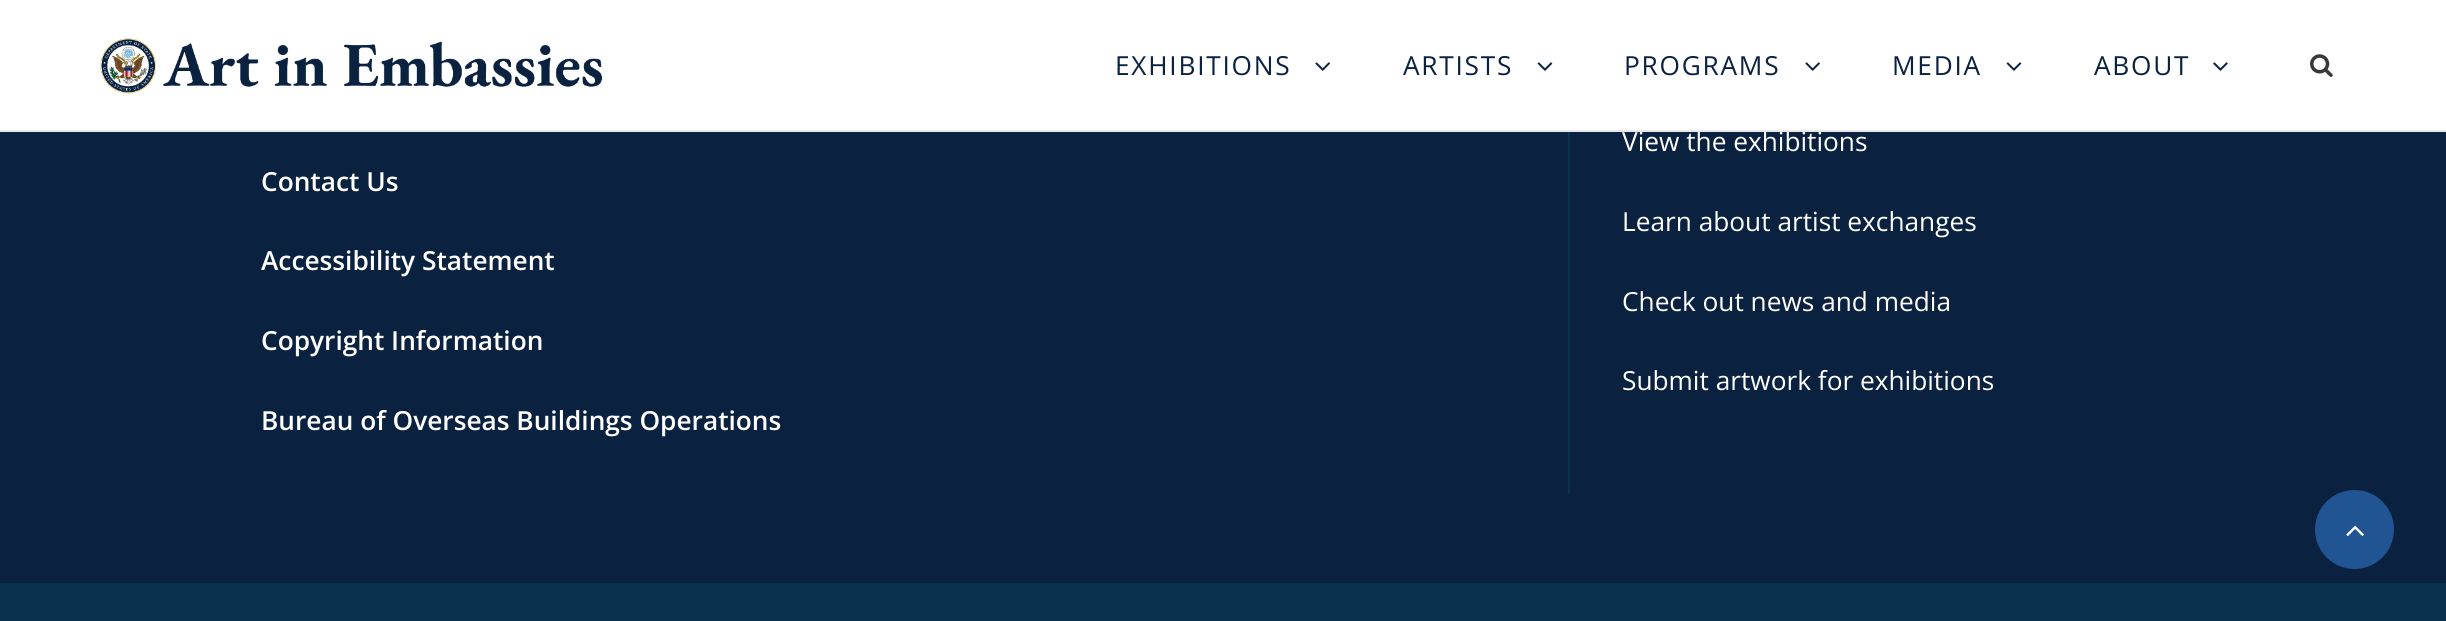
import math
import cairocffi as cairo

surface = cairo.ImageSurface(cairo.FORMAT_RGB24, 2446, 621)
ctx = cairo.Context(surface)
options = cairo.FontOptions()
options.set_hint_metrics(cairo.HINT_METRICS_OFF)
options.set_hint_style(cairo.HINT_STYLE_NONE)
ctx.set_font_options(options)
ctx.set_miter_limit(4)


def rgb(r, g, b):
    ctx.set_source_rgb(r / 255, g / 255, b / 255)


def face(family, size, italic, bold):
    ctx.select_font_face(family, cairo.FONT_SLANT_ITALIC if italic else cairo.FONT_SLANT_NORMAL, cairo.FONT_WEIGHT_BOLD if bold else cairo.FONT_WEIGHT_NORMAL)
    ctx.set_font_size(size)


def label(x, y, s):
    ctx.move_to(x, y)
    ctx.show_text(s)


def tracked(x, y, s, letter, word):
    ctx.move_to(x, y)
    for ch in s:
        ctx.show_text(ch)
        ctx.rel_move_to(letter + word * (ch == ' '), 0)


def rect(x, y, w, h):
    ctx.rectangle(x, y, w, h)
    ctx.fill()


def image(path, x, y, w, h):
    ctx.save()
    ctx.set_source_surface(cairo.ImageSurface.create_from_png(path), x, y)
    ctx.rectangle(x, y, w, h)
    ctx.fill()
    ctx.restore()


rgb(10, 34, 64)
ctx.paint()
face('Open Sans', 26.25, 0, 0)
rgb(255, 255, 255)
label(1622, 151, 'View the exhibitions')
rgb(232, 232, 232)
rect(0, 130, 2446, 2)
rgb(255, 255, 255)
rect(0, 0, 2446, 130)
image('image0.png', 100, 38, 503, 56)
rgb(10, 34, 64)
tracked(1115, 75, 'EXHIBITIONS', 1.75, 0)
image('image1.png', 1315, 62, 15, 9)
tracked(1403, 75, 'ARTISTS', 1.75, 0)
image('image2.png', 1537, 62, 16, 9)
tracked(1624, 75, 'PROGRAMS', 1.75, 0)
image('image1.png', 1805, 62, 15, 9)
tracked(1892, 75, 'MEDIA', 1.75, 0)
image('image2.png', 2006, 62, 16, 9)
tracked(2094, 75, 'ABOUT', 1.75, 0)
image('image3.png', 2213, 62, 15, 9)
image('image4.png', 2310, 54, 23, 23)
face('Open Sans SemiBold', 26.25, 0, 0)
rgb(255, 255, 255)
label(261, 191, 'Contact Us')
label(261, 270, 'Accessibility Statement')
label(261, 350, 'Copyright Information')
label(261, 430, 'Bureau of Overseas Buildings Operations')
rgb(10, 49, 77)
rect(1568, 132, 2, 362)
face('Open Sans', 26.25, 0, 0)
rgb(255, 255, 255)
label(1622, 231, 'Learn about artist exchanges')
label(1622, 311, 'Check out news and media')
label(1622, 390, 'Submit artwork for exhibitions')
rgb(10, 49, 77)
rect(0, 583, 2446, 38)
rgb(32, 84, 147)
ctx.new_path()
ctx.arc(2354.5, 529.5, 39.5, 0, 2 * math.pi)
ctx.fill()
image('image5.png', 2346, 525, 18, 11)
surface.write_to_png('render.png')
